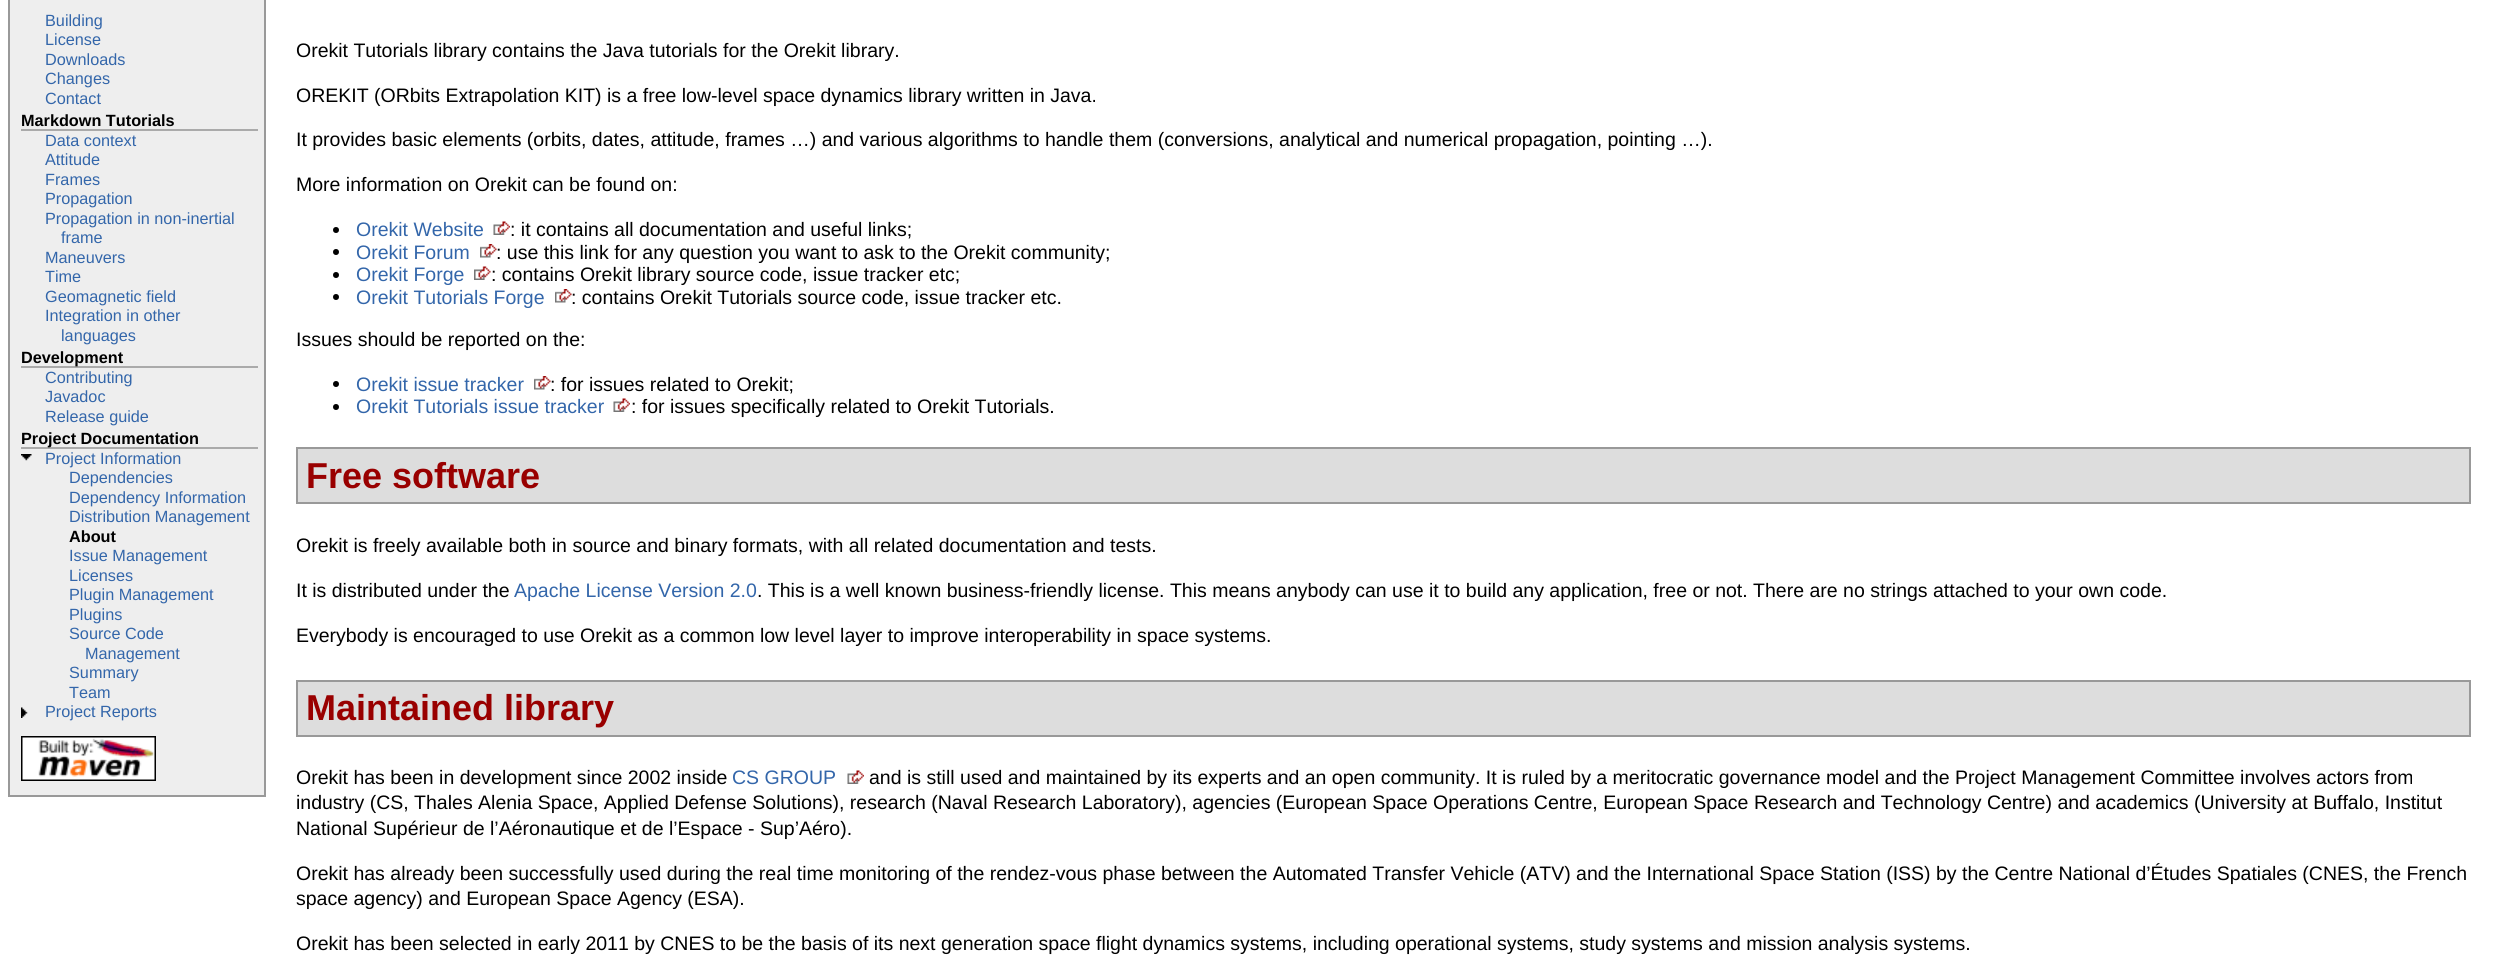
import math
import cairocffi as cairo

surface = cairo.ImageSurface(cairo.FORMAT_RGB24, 2499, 964)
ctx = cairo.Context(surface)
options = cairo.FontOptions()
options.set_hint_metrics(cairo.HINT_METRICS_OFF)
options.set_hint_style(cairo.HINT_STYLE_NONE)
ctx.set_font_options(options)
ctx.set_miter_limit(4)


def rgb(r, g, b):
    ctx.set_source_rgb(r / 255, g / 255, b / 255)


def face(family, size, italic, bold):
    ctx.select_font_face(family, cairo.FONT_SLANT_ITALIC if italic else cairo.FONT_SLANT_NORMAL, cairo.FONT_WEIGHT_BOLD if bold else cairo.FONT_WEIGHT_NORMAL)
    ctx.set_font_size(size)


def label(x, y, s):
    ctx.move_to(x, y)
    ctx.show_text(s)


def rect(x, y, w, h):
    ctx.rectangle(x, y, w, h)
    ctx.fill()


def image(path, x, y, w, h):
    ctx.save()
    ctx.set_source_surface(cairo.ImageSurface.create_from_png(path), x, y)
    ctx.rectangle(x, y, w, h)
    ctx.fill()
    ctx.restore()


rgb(255, 255, 255)
ctx.paint()
rgb(238, 238, 238)
ctx.rectangle(9, -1, 256, 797)
ctx.fill_preserve()
rgb(153, 153, 153)
ctx.stroke()
face('Liberation Sans', 16.25, 0, 0)
rgb(51, 102, 170)
label(45, 26, 'Building')
label(45, 45, 'License')
label(45, 65, 'Downloads')
label(45, 84, 'Changes')
label(45, 104, 'Contact')
rgb(170, 170, 170)
rect(21, 129, 237, 2)
face('Liberation Sans', 16.25, 0, 1)
rgb(0, 0, 0)
label(21, 126, 'Markdown Tutorials')
face('Liberation Sans', 16.25, 0, 0)
rgb(51, 102, 170)
label(45, 146, 'Data context')
label(45, 165, 'Attitude')
label(45, 185, 'Frames')
label(45, 204, 'Propagation')
label(45, 224, 'Propagation in non-inertial')
label(61, 243, 'frame')
label(45, 263, 'Maneuvers')
label(45, 282, 'Time')
label(45, 302, 'Geomagnetic field')
label(45, 321, 'Integration in other')
label(61, 341, 'languages')
rgb(170, 170, 170)
rect(21, 366, 237, 2)
face('Liberation Sans', 16.25, 0, 1)
rgb(0, 0, 0)
label(21, 363, 'Development')
face('Liberation Sans', 16.25, 0, 0)
rgb(51, 102, 170)
label(45, 383, 'Contributing')
label(45, 402, 'Javadoc')
label(45, 422, 'Release guide')
rgb(170, 170, 170)
rect(21, 447, 237, 2)
face('Liberation Sans', 16.25, 0, 1)
rgb(0, 0, 0)
label(21, 444, 'Project Documentation')
image('image0.png', 21, 454, 11, 7)
face('Liberation Sans', 16.25, 0, 0)
rgb(51, 102, 170)
label(45, 464, 'Project Information')
label(69, 483, 'Dependencies')
label(69, 503, 'Dependency Information')
label(69, 522, 'Distribution Management')
face('Liberation Sans', 16.25, 0, 1)
rgb(0, 0, 0)
label(69, 542, 'About')
face('Liberation Sans', 16.25, 0, 0)
rgb(51, 102, 170)
label(69, 561, 'Issue Management')
label(69, 581, 'Licenses')
label(69, 600, 'Plugin Management')
label(69, 620, 'Plugins')
label(69, 639, 'Source Code')
label(85, 659, 'Management')
label(69, 678, 'Summary')
label(69, 698, 'Team')
image('image1.png', 21, 707, 7, 11)
label(45, 717, 'Project Reports')
image('image2.png', 21, 736, 135, 45)
face('Liberation Sans', 19.5, 0, 0)
rgb(0, 0, 0)
label(296, 57, 'Orekit Tutorials library contains the Java tutorials for the Orekit library.')
label(296, 102, 'OREKIT (ORbits Extrapolation KIT) is a free low-level space dynamics library written in Java.')
label(296, 146, 'It provides basic elements (orbits, dates, attitude, frames …) and various algorithms to handle them (conversions, analytical and numerical propagation, pointing …).')
label(296, 191, 'More information on Orekit can be found on:')
ctx.new_path()
ctx.arc(336, 230, 3, 0, 2 * math.pi)
ctx.fill()
rgb(51, 102, 170)
label(356, 236, 'Orekit Website')
image('image3.png', 493, 221, 17, 14)
rgb(0, 0, 0)
label(510, 236, ': it contains all documentation and useful links;')
ctx.new_path()
ctx.arc(336, 252, 3, 0, 2 * math.pi)
ctx.fill()
rgb(51, 102, 170)
label(356, 259, 'Orekit Forum')
image('image4.png', 480, 244, 17, 14)
rgb(0, 0, 0)
label(496, 259, ': use this link for any question you want to ask to the Orekit community;')
ctx.new_path()
ctx.arc(336, 275, 3, 0, 2 * math.pi)
ctx.fill()
rgb(51, 102, 170)
label(356, 281, 'Orekit Forge')
image('image5.png', 474, 266, 17, 14)
rgb(0, 0, 0)
label(491, 281, ': contains Orekit library source code, issue tracker etc;')
ctx.new_path()
ctx.arc(336, 297, 3, 0, 2 * math.pi)
ctx.fill()
rgb(51, 102, 170)
label(356, 304, 'Orekit Tutorials Forge')
image('image6.png', 555, 289, 17, 14)
rgb(0, 0, 0)
label(571, 304, ': contains Orekit Tutorials source code, issue tracker etc.')
label(296, 346, 'Issues should be reported on the:')
ctx.new_path()
ctx.arc(336, 384, 3, 0, 2 * math.pi)
ctx.fill()
rgb(51, 102, 170)
label(356, 391, 'Orekit issue tracker')
image('image6.png', 534, 376, 17, 14)
rgb(0, 0, 0)
label(550, 391, ': for issues related to Orekit;')
ctx.new_path()
ctx.arc(336, 407, 3, 0, 2 * math.pi)
ctx.fill()
rgb(51, 102, 170)
label(356, 413, 'Orekit Tutorials issue tracker')
image('image7.png', 613, 398, 17, 14)
rgb(0, 0, 0)
label(631, 413, ': for issues specifically related to Orekit Tutorials.')
rgb(221, 221, 221)
ctx.rectangle(297, 448, 2173, 55)
ctx.fill_preserve()
rgb(153, 153, 153)
ctx.stroke()
face('Liberation Sans', 36, 0, 1)
rgb(153, 0, 0)
label(306, 488, 'Free software')
face('Liberation Sans', 19.5, 0, 0)
rgb(0, 0, 0)
label(296, 552, 'Orekit is freely available both in source and binary formats, with all related documentation and tests.')
label(296, 597, 'It is distributed under the')
rgb(51, 102, 170)
label(514, 597, 'Apache License Version 2.0')
rgb(0, 0, 0)
label(757, 597, '. This is a well known business-friendly license. This means anybody can use it to build any application, free or not. There are no strings attached to your own code.')
label(296, 642, 'Everybody is encouraged to use Orekit as a common low level layer to improve interoperability in space systems.')
rgb(221, 221, 221)
ctx.rectangle(297, 681, 2173, 55)
ctx.fill_preserve()
rgb(153, 153, 153)
ctx.stroke()
face('Liberation Sans', 36, 0, 1)
rgb(153, 0, 0)
label(306, 720, 'Maintained library')
face('Liberation Sans', 19.5, 0, 0)
rgb(0, 0, 0)
label(296, 784, 'Orekit has been in development since 2002 inside')
rgb(51, 102, 170)
label(732, 784, 'CS GROUP')
image('image3.png', 847, 770, 17, 14)
rgb(0, 0, 0)
label(869, 784, 'and is still used and maintained by its experts and an open community. It is ruled by a meritocratic governance model and the Project Management Committee involves actors from')
label(296, 809, 'industry (CS, Thales Alenia Space, Applied Defense Solutions), research (Naval Research Laboratory), agencies (European Space Operations Centre, European Space Research and Technology Centre) and academics (University at Buffalo, Institut')
label(296, 835, 'National Supérieur de l’Aéronautique et de l’Espace - Sup’Aéro).')
label(296, 880, 'Orekit has already been successfully used during the real time monitoring of the rendez-vous phase between the Automated Transfer Vehicle (ATV) and the International Space Station (ISS) by the Centre National d’Études Spatiales (CNES, the French')
label(296, 905, 'space agency) and European Space Agency (ESA).')
label(296, 950, 'Orekit has been selected in early 2011 by CNES to be the basis of its next generation space flight dynamics systems, including operational systems, study systems and mission analysis systems.')
surface.write_to_png('render.png')
